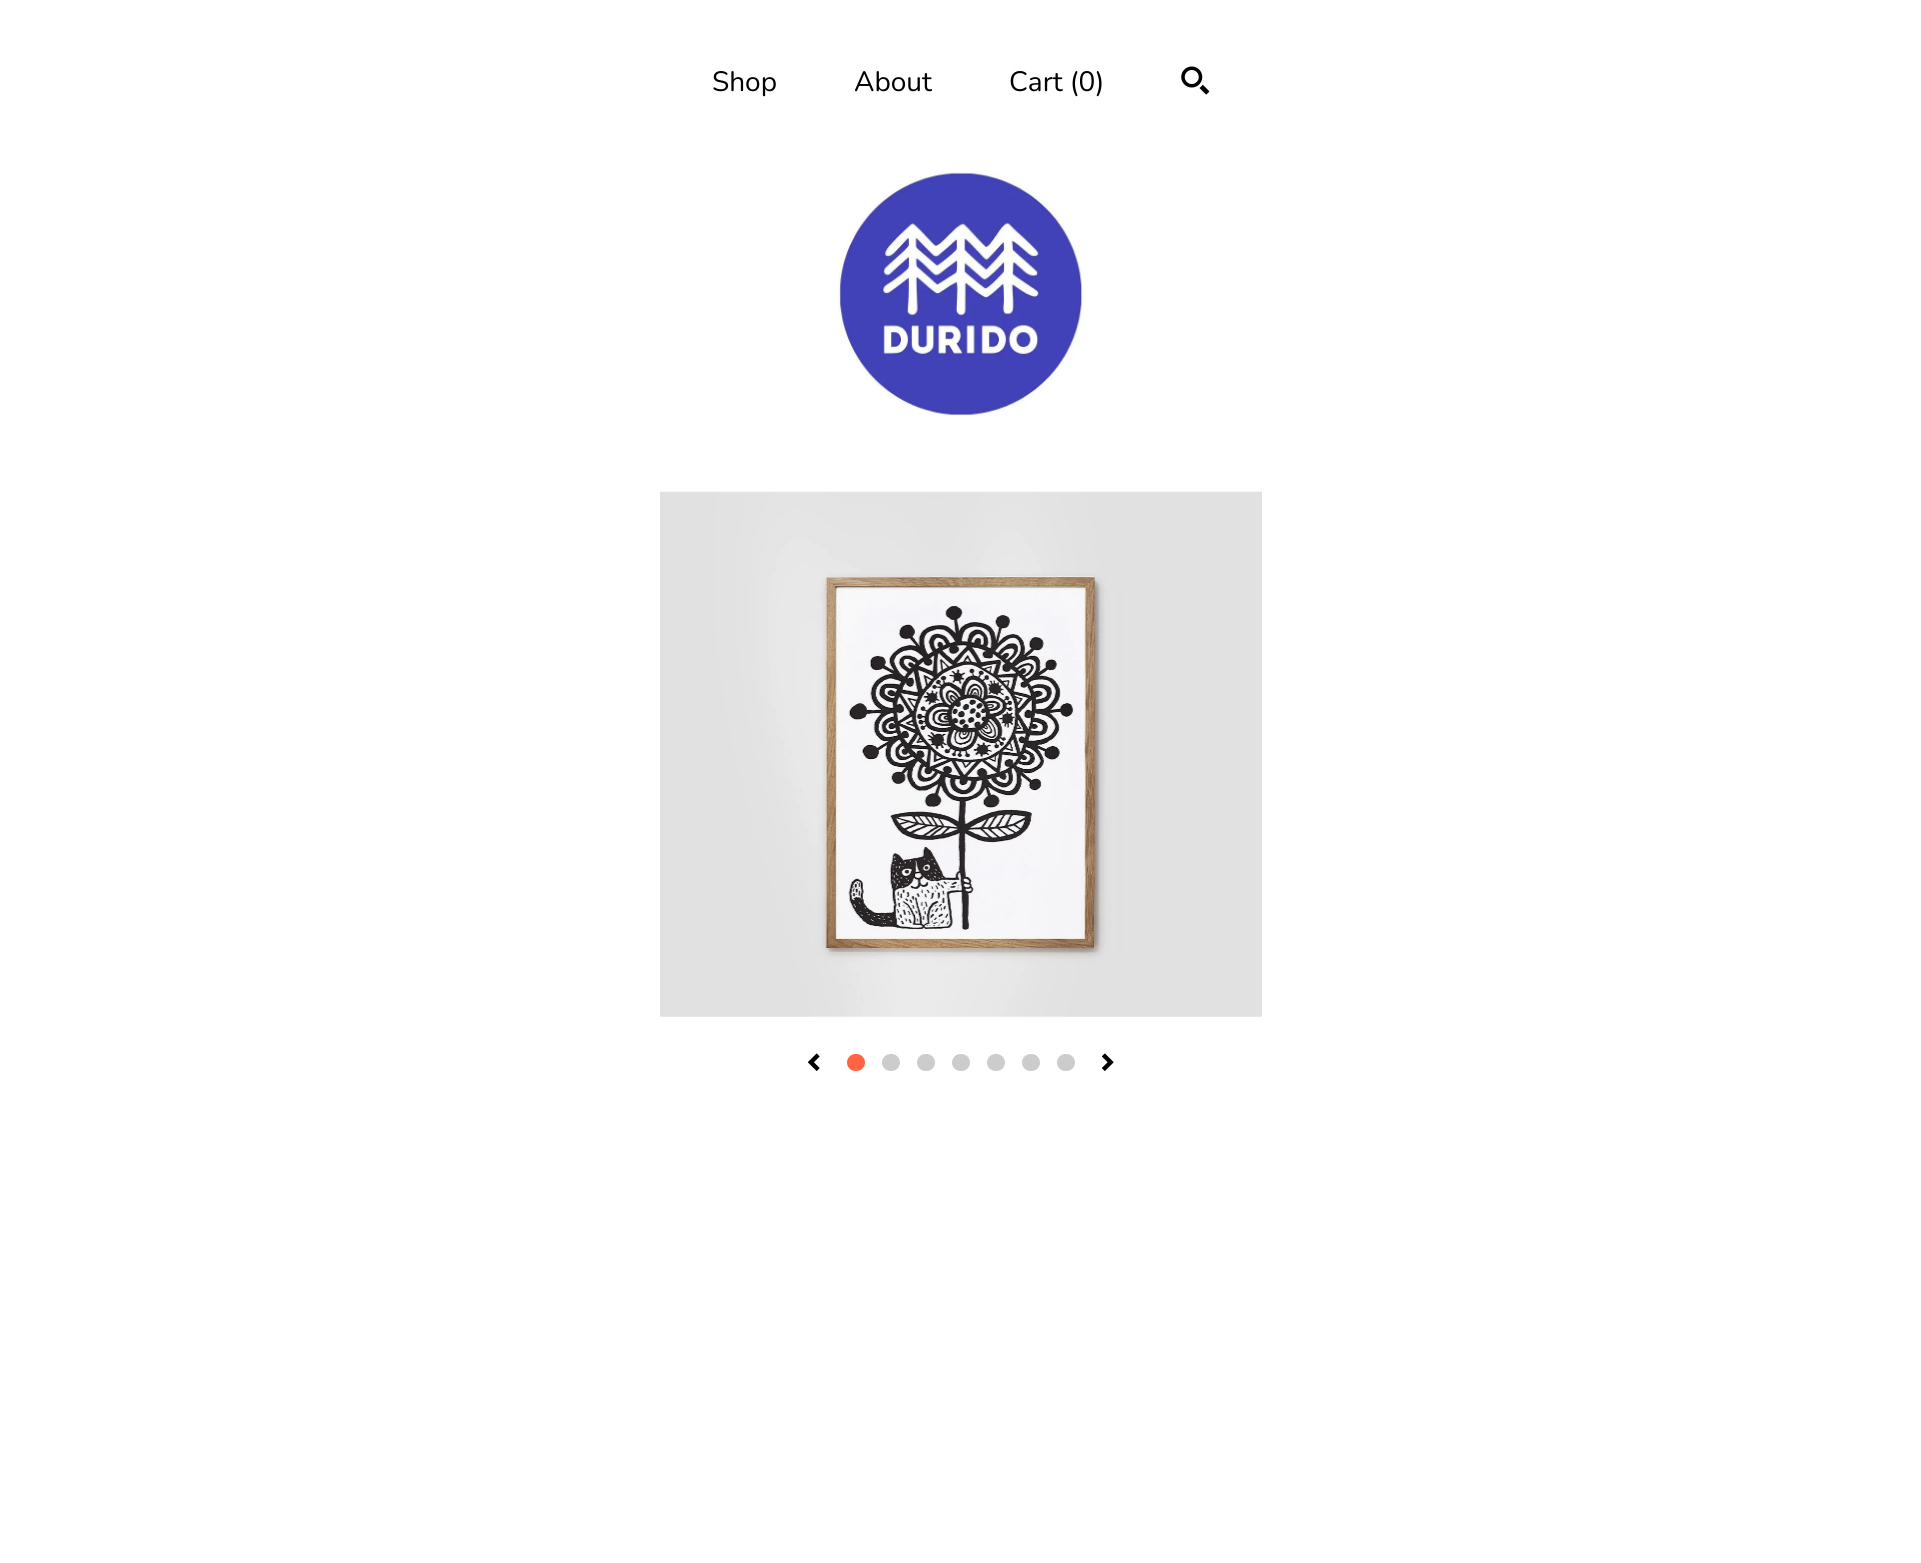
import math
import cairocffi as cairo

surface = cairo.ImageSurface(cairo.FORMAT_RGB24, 1921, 1563)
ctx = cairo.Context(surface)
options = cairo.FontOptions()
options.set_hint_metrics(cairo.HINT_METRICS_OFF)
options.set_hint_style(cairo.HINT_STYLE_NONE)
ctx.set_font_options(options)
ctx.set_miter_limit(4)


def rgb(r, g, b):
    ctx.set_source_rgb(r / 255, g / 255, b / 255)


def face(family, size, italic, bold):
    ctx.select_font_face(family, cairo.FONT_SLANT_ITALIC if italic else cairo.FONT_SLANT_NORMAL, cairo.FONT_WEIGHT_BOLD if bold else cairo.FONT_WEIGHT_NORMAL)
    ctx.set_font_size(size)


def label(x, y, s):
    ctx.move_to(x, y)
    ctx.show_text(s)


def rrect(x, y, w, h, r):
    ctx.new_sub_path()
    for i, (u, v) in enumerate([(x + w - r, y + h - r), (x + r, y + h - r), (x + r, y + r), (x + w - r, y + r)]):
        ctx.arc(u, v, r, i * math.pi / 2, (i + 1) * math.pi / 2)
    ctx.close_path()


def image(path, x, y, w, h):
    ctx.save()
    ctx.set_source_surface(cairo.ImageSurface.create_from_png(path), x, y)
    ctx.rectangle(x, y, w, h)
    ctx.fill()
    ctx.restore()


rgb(255, 255, 255)
ctx.paint()
face('Nunito', 28, 0, 0)
rgb(0, 0, 0)
label(712, 91, 'Shop')
label(854, 91, 'About')
label(1009, 91, 'Cart (0)')
image('image0.png', 1181, 66, 29, 29)
image('image1.png', 838, 171, 245, 245)
image('image2.png', 660, 491, 602, 526)
image('image3.png', 808, 1053, 12, 18)
rgb(255, 101, 68)
rrect(847, 1054, 18, 17, 8.5)
ctx.fill()
rgb(204, 204, 204)
rrect(882, 1054, 18, 17, 8.5)
ctx.fill()
rrect(917, 1054, 18, 17, 8.5)
ctx.fill()
rrect(952, 1054, 18, 17, 8.5)
ctx.fill()
rrect(987, 1054, 18, 17, 8.5)
ctx.fill()
rrect(1022, 1054, 18, 17, 8.5)
ctx.fill()
rrect(1057, 1054, 18, 17, 8.5)
ctx.fill()
image('image4.png', 1102, 1053, 12, 18)
surface.write_to_png('render.png')
